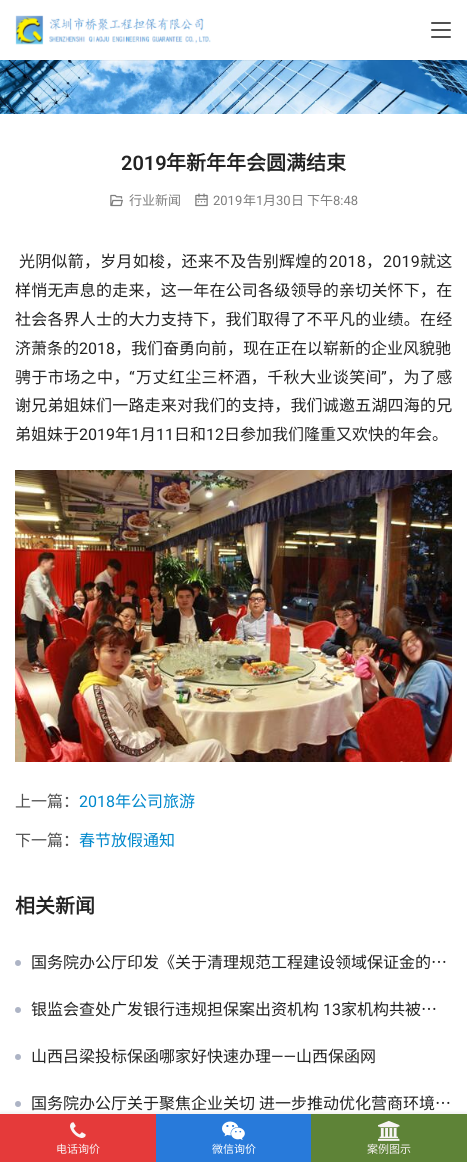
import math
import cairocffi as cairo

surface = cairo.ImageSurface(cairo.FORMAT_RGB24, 467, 1162)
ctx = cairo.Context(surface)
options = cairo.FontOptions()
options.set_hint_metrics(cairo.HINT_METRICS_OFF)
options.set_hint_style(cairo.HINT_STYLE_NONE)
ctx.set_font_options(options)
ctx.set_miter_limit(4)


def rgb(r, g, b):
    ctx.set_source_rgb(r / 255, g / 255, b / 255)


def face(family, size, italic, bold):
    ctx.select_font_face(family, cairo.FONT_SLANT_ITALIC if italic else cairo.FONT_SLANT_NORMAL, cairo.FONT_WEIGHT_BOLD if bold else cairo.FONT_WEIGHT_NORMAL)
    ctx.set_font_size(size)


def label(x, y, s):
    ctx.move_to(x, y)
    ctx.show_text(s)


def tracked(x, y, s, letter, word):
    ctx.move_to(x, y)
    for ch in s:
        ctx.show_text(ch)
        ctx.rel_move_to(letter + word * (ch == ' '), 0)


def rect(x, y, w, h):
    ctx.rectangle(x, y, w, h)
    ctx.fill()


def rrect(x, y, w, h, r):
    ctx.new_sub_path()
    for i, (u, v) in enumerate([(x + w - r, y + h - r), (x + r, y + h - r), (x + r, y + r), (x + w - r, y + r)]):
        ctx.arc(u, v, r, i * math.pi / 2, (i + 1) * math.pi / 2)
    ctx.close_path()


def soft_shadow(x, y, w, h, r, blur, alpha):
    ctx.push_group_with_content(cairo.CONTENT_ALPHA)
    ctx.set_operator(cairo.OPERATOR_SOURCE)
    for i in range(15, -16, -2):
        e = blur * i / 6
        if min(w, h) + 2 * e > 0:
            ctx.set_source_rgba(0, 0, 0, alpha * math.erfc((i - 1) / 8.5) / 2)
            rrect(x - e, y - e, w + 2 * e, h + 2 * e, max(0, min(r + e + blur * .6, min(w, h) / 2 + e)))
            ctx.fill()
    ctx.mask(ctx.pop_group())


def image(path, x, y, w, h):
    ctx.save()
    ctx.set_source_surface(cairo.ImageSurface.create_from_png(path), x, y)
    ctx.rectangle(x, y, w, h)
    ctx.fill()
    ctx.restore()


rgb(255, 255, 255)
ctx.paint()
image('image1.png', 0, 60, 467, 54)
ctx.save()
ctx.rectangle(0, 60, 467, 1)
ctx.clip()
rgb(0, 0, 0)
soft_shadow(0, 1, 467, 60, 0, 0.5, 0.05)
ctx.restore()
image('image0.png', 15, 15, 196, 30)
rgb(81, 81, 81)
rrect(431, 22, 20, 2, 1)
ctx.fill()
rrect(431, 29, 20, 2, 1)
ctx.fill()
rrect(431, 36, 20, 2, 1)
ctx.fill()
face('Roboto SemiBold', 20, 0, 0)
rgb(35, 35, 35)
label(121, 170, '2019')
face('Noto Sans CJK SC', 20, 0, 1)
label(166, 170, '年新年年会圆满结束')
image('image2.png', 110, 194, 13, 13)
face('Noto Sans CJK SC', 13, 0, 0)
rgb(125, 125, 125)
label(129, 205, '行业新闻')
image('image3.png', 195, 193, 13, 14)
face('Roboto', 13, 0, 0)
label(213, 205, '2019')
face('Noto Sans CJK SC', 13, 0, 0)
label(243, 205, '年')
face('Roboto', 13, 0, 0)
label(256, 205, '1')
face('Noto Sans CJK SC', 13, 0, 0)
label(263, 205, '月')
face('Roboto', 13, 0, 0)
label(276, 205, '30')
face('Noto Sans CJK SC', 13, 0, 0)
label(291, 205, '日 下午')
face('Roboto', 13, 0, 0)
label(333, 205, '8:48')
face('Noto Sans CJK SC', 16, 0, 0)
rgb(35, 35, 35)
tracked(19, 267, '光阴似箭，岁月如梭，还来不及告别辉煌的', 0.25, 0)
face('Roboto', 16, 0, 0)
tracked(329, 267, '2018', 0.25, 0)
face('Noto Sans CJK SC', 16, 0, 0)
tracked(366, 267, '，', 0.25, 0)
face('Roboto', 16, 0, 0)
tracked(383, 267, '2019', 0.25, 0)
face('Noto Sans CJK SC', 16, 0, 0)
tracked(420, 267, '就这', 0.25, 0)
tracked(15, 296, '样悄无声息的走来，这一年在公司各级领导的亲切关怀下，在', 0.2, 0)
tracked(15, 325, '社会各界人士的大力支持下，我们取得了不平凡的业绩。在经', 0.2, 0)
label(15, 354, '济萧条的')
face('Roboto', 16, 0, 0)
label(79, 354, '2018')
face('Noto Sans CJK SC', 16, 0, 0)
label(115, 354, '，我们奋勇向前，现在正在以崭新的企业风貌驰')
tracked(15, 383, '骋于市场之中，', 0.4, 0)
face('Roboto', 16, 0, 0)
tracked(129, 383, '“', 0.4, 0)
face('Noto Sans CJK SC', 16, 0, 0)
tracked(136, 383, '万丈红尘三杯酒，千秋大业谈笑间', 0.4, 0)
face('Roboto', 16, 0, 0)
tracked(381, 383, '”', 0.4, 0)
face('Noto Sans CJK SC', 16, 0, 0)
tracked(387, 383, '，为了感', 0.4, 0)
tracked(15, 411, '谢兄弟姐妹们一路走来对我们的支持，我们诚邀五湖四海的兄', 0.2, 0)
label(15, 440, '弟姐妹于')
face('Roboto', 16, 0, 0)
label(79, 440, '2019')
face('Noto Sans CJK SC', 16, 0, 0)
label(115, 440, '年')
face('Roboto', 16, 0, 0)
label(131, 440, '1')
face('Noto Sans CJK SC', 16, 0, 0)
label(140, 440, '月')
face('Roboto', 16, 0, 0)
label(156, 440, '11')
face('Noto Sans CJK SC', 16, 0, 0)
label(174, 440, '日和')
face('Roboto', 16, 0, 0)
label(206, 440, '12')
face('Noto Sans CJK SC', 16, 0, 0)
label(224, 440, '日参加我们隆重又欢快的年会。')
image('image4.png', 15, 470, 437, 292)
rgb(81, 81, 81)
label(15, 807, '上一篇：')
face('Roboto', 16, 0, 0)
rgb(0, 136, 204)
label(79, 807, '2018')
face('Noto Sans CJK SC', 16, 0, 0)
label(115, 807, '年公司旅游')
rgb(81, 81, 81)
label(15, 846, '下一篇：')
rgb(0, 136, 204)
label(79, 846, '春节放假通知')
face('Noto Sans CJK SC', 20, 0, 1)
rgb(35, 35, 35)
label(15, 913, '相关新闻')
rgb(173, 180, 197)
ctx.new_path()
ctx.arc(18, 963, 3, 0, 2 * math.pi)
ctx.fill()
face('Noto Sans CJK SC', 16, 0, 0)
rgb(35, 35, 35)
label(31, 968, '国务院办公厅印发《关于清理规范工程建设领域保证金的…')
rgb(173, 180, 197)
ctx.new_path()
ctx.arc(18, 1010, 3, 0, 2 * math.pi)
ctx.fill()
rgb(35, 35, 35)
label(31, 1015, '银监会查处广发银行违规担保案出资机构')
face('Roboto', 16, 0, 0)
label(323, 1015, '13')
face('Noto Sans CJK SC', 16, 0, 0)
label(341, 1015, '家机构共被…')
rgb(173, 180, 197)
ctx.new_path()
ctx.arc(18, 1057, 3, 0, 2 * math.pi)
ctx.fill()
rgb(35, 35, 35)
label(31, 1062, '山西吕梁投标保函哪家好快速办理')
face('Roboto', 16, 0, 0)
label(271, 1062, '——')
face('Noto Sans CJK SC', 16, 0, 0)
label(296, 1062, '山西保函网')
rgb(173, 180, 197)
ctx.new_path()
ctx.arc(18, 1104, 3, 0, 2 * math.pi)
ctx.fill()
rgb(35, 35, 35)
label(31, 1109, '国务院办公厅关于聚焦企业关切')
label(259, 1109, '进一步推动优化营商环境…')
rgb(38, 38, 38)
soft_shadow(0, 1112, 467, 48, 0, 1.5, 0.06)
rgb(229, 58, 58)
rect(0, 1114, 156, 48)
image('image5.png', 70, 1122, 16, 16)
face('Noto Sans CJK SC', 11, 0, 0)
rgb(250, 244, 244)
label(56, 1153, '电话询价')
rgb(40, 122, 218)
rect(156, 1114, 155, 48)
image('image6.png', 222, 1121, 23, 19)
rgb(255, 255, 255)
label(212, 1153, '微信询价')
rgb(94, 131, 55)
rect(311, 1114, 156, 48)
image('image7.png', 378, 1120, 22, 21)
rgb(250, 244, 244)
label(367, 1153, '案例图示')
surface.write_to_png('render.png')
